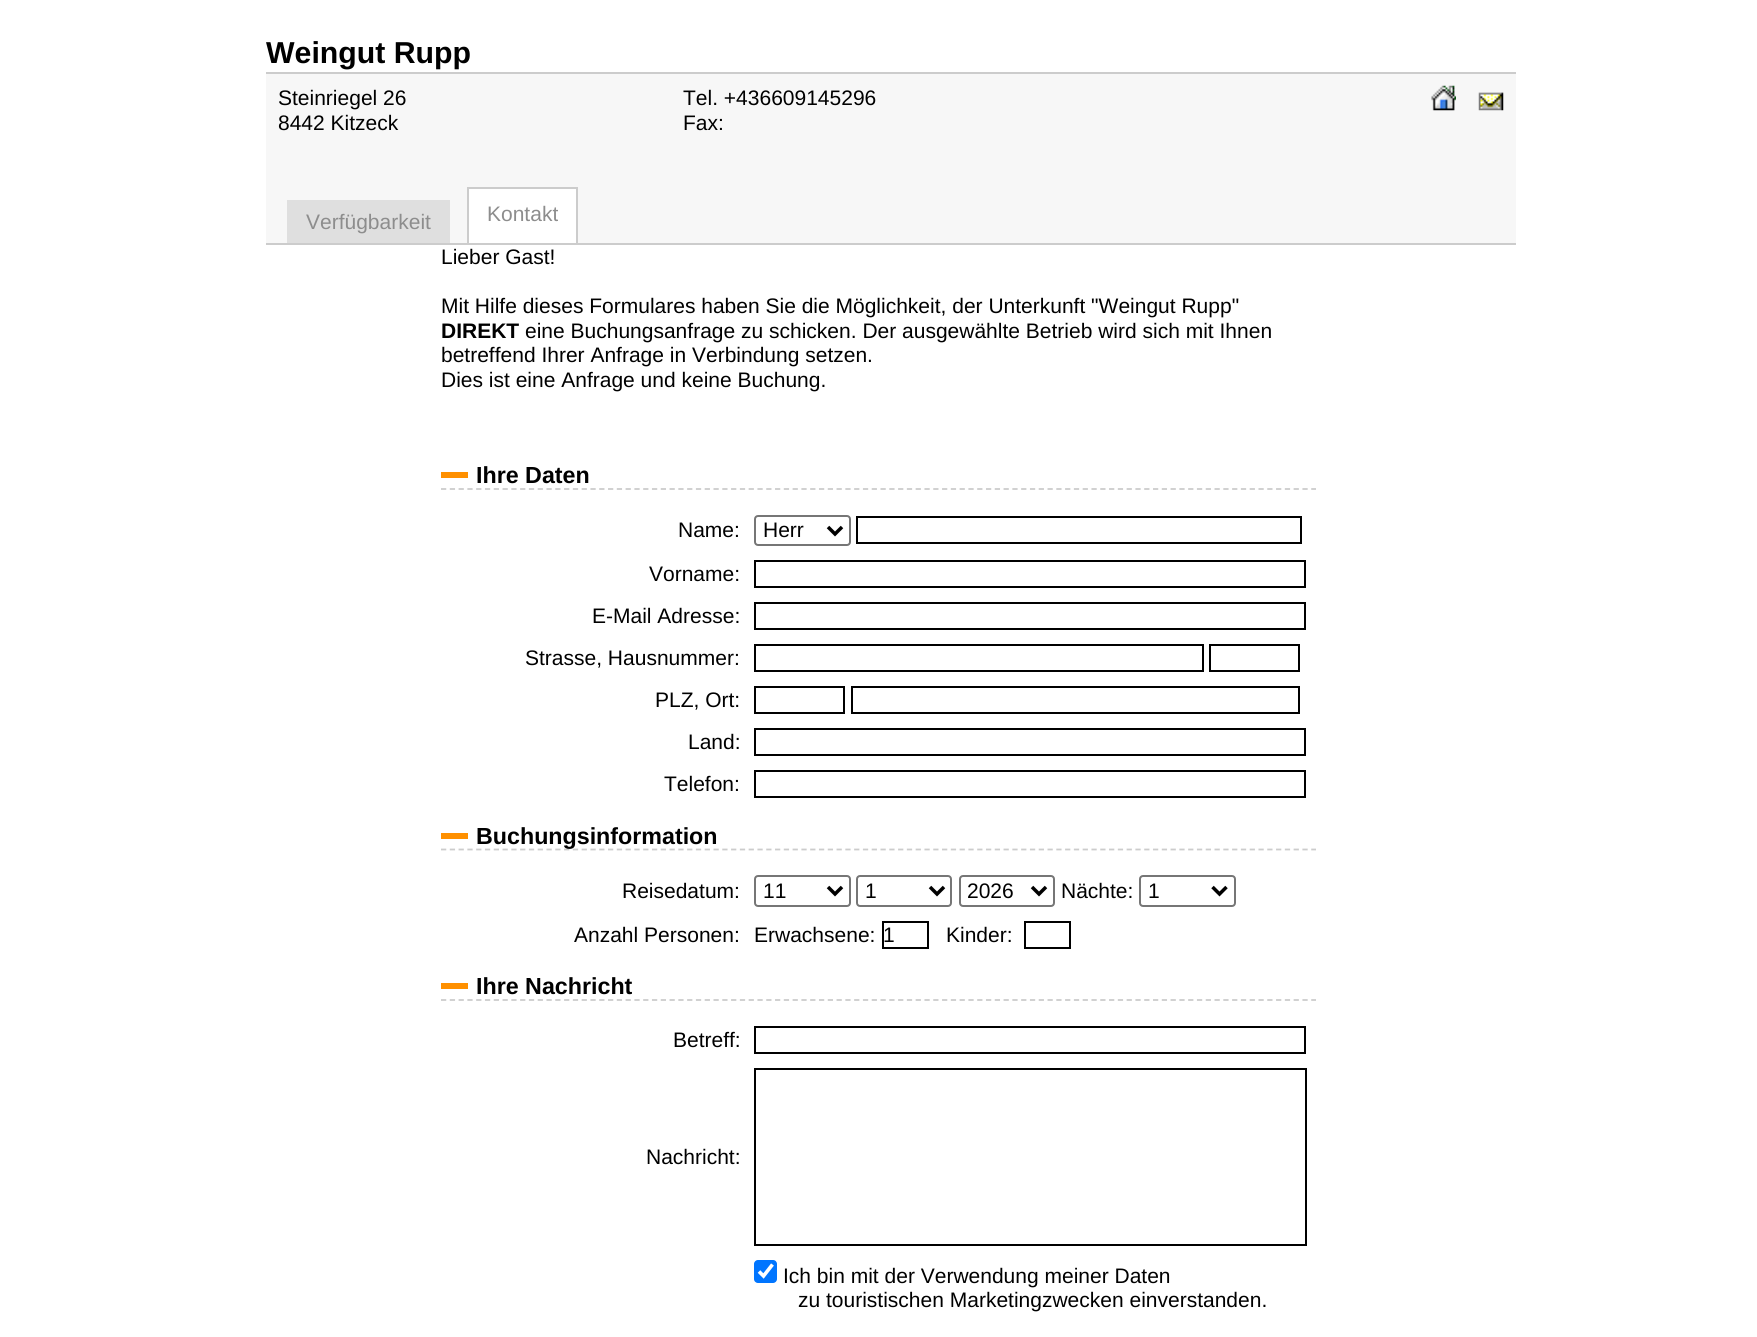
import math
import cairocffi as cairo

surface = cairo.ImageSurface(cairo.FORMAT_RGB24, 1757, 1337)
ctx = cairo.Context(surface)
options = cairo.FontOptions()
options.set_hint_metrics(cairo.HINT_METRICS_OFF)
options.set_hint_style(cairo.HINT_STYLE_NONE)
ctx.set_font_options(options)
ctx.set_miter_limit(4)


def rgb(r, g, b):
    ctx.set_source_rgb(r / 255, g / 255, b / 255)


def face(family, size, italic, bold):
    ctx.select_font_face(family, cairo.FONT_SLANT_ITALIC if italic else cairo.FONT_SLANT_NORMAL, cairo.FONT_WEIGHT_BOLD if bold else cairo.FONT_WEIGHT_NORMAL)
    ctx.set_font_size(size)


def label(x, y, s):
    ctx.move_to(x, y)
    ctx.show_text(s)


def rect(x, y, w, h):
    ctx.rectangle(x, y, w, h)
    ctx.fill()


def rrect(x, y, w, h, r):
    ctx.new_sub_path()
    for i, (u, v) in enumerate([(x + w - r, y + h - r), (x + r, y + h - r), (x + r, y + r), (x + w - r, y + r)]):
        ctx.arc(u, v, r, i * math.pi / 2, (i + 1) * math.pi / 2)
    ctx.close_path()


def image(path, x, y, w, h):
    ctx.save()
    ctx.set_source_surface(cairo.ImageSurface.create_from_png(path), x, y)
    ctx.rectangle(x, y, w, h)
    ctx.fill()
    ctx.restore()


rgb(255, 255, 255)
ctx.paint()
face('Liberation Sans', 30.25, 0, 1)
rgb(0, 0, 0)
label(266, 63, 'Weingut Rupp')
rgb(247, 247, 247)
rect(266, 74, 1250, 169)
rgb(204, 204, 204)
rect(266, 72, 1250, 2)
rect(266, 243, 1250, 2)
face('Liberation Sans', 21, 0, 0)
rgb(0, 0, 0)
label(278, 105, 'Steinriegel 26')
label(278, 130, '8442 Kitzeck')
label(683, 105, 'Tel. +436609145296')
label(683, 130, 'Fax:')
image('image0.png', 1431, 85, 25, 26)
image('image1.png', 1478, 92, 26, 19)
rgb(223, 223, 223)
rect(287, 200, 163, 43)
rgb(141, 141, 141)
label(306, 229, 'Verfügbarkeit')
rgb(255, 255, 255)
rect(469, 189, 107, 54)
rgb(204, 204, 204)
rect(467, 187, 111, 2)
rect(576, 187, 2, 56)
rect(467, 187, 2, 56)
rgb(141, 141, 141)
label(487, 221, 'Kontakt')
rgb(0, 0, 0)
label(441, 264, 'Lieber Gast!')
label(441, 313, 'Mit Hilfe dieses Formulares haben Sie die Möglichkeit, der Unterkunft "Weingut Rupp"')
face('Liberation Sans', 21, 0, 1)
label(441, 338, 'DIREKT')
face('Liberation Sans', 21, 0, 0)
label(525, 338, 'eine Buchungsanfrage zu schicken. Der ausgewählte Betrieb wird sich mit Ihnen')
label(441, 362, 'betreffend Ihrer Anfrage in Verbindung setzen.')
label(441, 387, 'Dies ist eine Anfrage und keine Buchung.')
rgb(255, 144, 0)
rect(441, 472, 27, 6)
ctx.new_path()
ctx.move_to(441, 489)
ctx.line_to(1316, 489)
rgb(204, 204, 204)
ctx.set_line_width(1.8)
ctx.set_dash([5.25, 3.54])
ctx.stroke()
face('Liberation Sans', 23.25, 0, 1)
rgb(0, 0, 0)
label(476, 483, 'Ihre Daten')
face('Liberation Sans', 21, 0, 0)
label(678, 537, 'Name:')
rrect(755, 516, 95, 29, 3)
rgb(118, 118, 118)
ctx.set_line_width(2)
ctx.set_dash([])
ctx.stroke()
ctx.new_path()
ctx.move_to(828, 527)
ctx.line_to(835, 534)
ctx.line_to(842, 527)
rgb(0, 0, 0)
ctx.set_line_width(3.5)
ctx.stroke()
label(763, 537, 'Herr')
ctx.rectangle(857, 517, 444, 26)
ctx.set_line_width(2)
ctx.stroke()
label(649, 581, 'Vorname:')
ctx.rectangle(755, 561, 550, 26)
ctx.stroke()
label(592, 623, 'E-Mail Adresse:')
ctx.rectangle(755, 603, 550, 26)
ctx.stroke()
label(525, 665, 'Strasse, Hausnummer:')
ctx.rectangle(755, 645, 448, 26)
ctx.stroke()
ctx.rectangle(1210, 645, 89, 26)
ctx.stroke()
label(655, 707, 'PLZ, Ort:')
ctx.rectangle(755, 687, 89, 26)
ctx.stroke()
ctx.rectangle(852, 687, 447, 26)
ctx.stroke()
label(688, 749, 'Land:')
ctx.rectangle(755, 729, 550, 26)
ctx.stroke()
label(664, 791, 'Telefon:')
ctx.rectangle(755, 771, 550, 26)
ctx.stroke()
rgb(255, 144, 0)
rect(441, 833, 27, 6)
ctx.new_path()
ctx.move_to(441, 849.5)
ctx.line_to(1316, 849.5)
rgb(204, 204, 204)
ctx.set_line_width(1.8)
ctx.set_dash([5.25, 3.54])
ctx.stroke()
face('Liberation Sans', 23.25, 0, 1)
rgb(0, 0, 0)
label(476, 844, 'Buchungsinformation')
face('Liberation Sans', 21, 0, 0)
label(622, 898, 'Reisedatum:')
rrect(755, 876, 95, 30, 3)
rgb(118, 118, 118)
ctx.set_line_width(2)
ctx.set_dash([])
ctx.stroke()
ctx.new_path()
ctx.move_to(828, 887)
ctx.line_to(835, 894)
ctx.line_to(842, 887)
rgb(0, 0, 0)
ctx.set_line_width(3.5)
ctx.stroke()
label(763, 898, '11')
rrect(857, 876, 94, 30, 3)
rgb(118, 118, 118)
ctx.set_line_width(2)
ctx.stroke()
ctx.new_path()
ctx.move_to(930, 887)
ctx.line_to(937, 894)
ctx.line_to(944, 887)
rgb(0, 0, 0)
ctx.set_line_width(3.5)
ctx.stroke()
label(865, 898, '1')
rrect(960, 876, 94, 30, 3)
rgb(118, 118, 118)
ctx.set_line_width(2)
ctx.stroke()
ctx.new_path()
ctx.move_to(1032, 887)
ctx.line_to(1039, 894)
ctx.line_to(1046, 887)
rgb(0, 0, 0)
ctx.set_line_width(3.5)
ctx.stroke()
label(967, 898, '2026')
label(1061, 898, 'Nächte:')
rrect(1140, 876, 95, 30, 3)
rgb(118, 118, 118)
ctx.set_line_width(2)
ctx.stroke()
ctx.new_path()
ctx.move_to(1212.5, 887)
ctx.line_to(1219.5, 894)
ctx.line_to(1226.5, 887)
rgb(0, 0, 0)
ctx.set_line_width(3.5)
ctx.stroke()
label(1148, 898, '1')
label(574, 942, 'Anzahl Personen:')
label(754, 942, 'Erwachsene:')
ctx.rectangle(883, 922, 45, 26)
ctx.set_line_width(2)
ctx.stroke()
label(883, 942, '1')
label(946, 942, 'Kinder:')
ctx.rectangle(1025, 922, 45, 26)
ctx.stroke()
rgb(255, 144, 0)
rect(441, 983, 27, 6)
ctx.new_path()
ctx.move_to(441, 1000)
ctx.line_to(1316, 1000)
rgb(204, 204, 204)
ctx.set_line_width(1.8)
ctx.set_dash([5.25, 3.54])
ctx.stroke()
face('Liberation Sans', 23.25, 0, 1)
rgb(0, 0, 0)
label(476, 994, 'Ihre Nachricht')
face('Liberation Sans', 21, 0, 0)
label(673, 1047, 'Betreff:')
ctx.rectangle(755, 1027, 550, 26)
ctx.set_line_width(2)
ctx.set_dash([])
ctx.stroke()
label(646, 1164, 'Nachricht:')
ctx.rectangle(755, 1069, 551, 176)
ctx.stroke()
rgb(0, 117, 255)
rrect(754, 1260, 23, 23, 4)
ctx.fill()
ctx.new_path()
ctx.move_to(759, 1271.5)
ctx.line_to(763.5, 1276)
ctx.line_to(772.5, 1264.5)
rgb(255, 255, 255)
ctx.set_line_width(3.6)
ctx.stroke()
rgb(0, 0, 0)
label(783, 1283, 'Ich bin mit der Verwendung meiner Daten')
label(798, 1307, 'zu touristischen Marketingzwecken einverstanden.')
surface.write_to_png('render.png')
